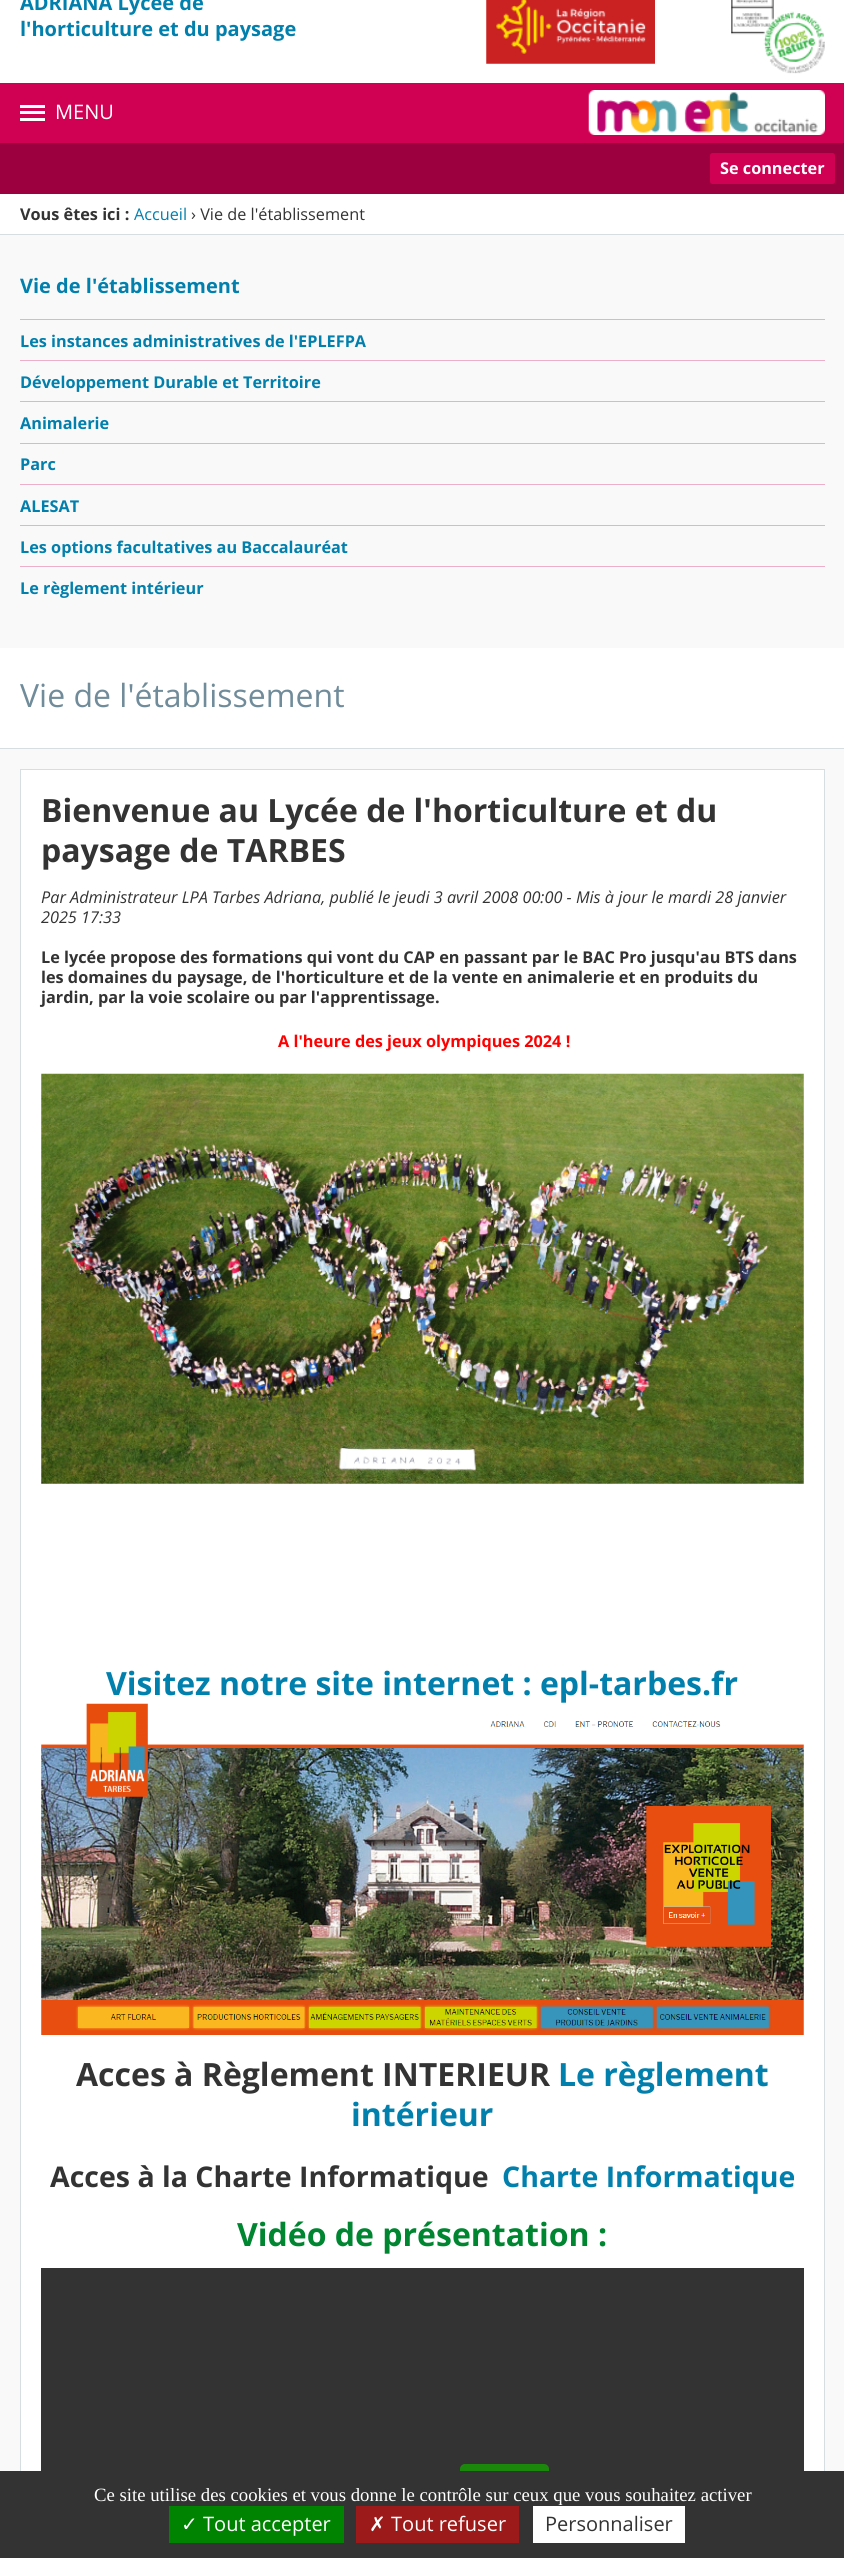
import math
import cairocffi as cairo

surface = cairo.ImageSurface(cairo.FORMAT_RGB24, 844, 2558)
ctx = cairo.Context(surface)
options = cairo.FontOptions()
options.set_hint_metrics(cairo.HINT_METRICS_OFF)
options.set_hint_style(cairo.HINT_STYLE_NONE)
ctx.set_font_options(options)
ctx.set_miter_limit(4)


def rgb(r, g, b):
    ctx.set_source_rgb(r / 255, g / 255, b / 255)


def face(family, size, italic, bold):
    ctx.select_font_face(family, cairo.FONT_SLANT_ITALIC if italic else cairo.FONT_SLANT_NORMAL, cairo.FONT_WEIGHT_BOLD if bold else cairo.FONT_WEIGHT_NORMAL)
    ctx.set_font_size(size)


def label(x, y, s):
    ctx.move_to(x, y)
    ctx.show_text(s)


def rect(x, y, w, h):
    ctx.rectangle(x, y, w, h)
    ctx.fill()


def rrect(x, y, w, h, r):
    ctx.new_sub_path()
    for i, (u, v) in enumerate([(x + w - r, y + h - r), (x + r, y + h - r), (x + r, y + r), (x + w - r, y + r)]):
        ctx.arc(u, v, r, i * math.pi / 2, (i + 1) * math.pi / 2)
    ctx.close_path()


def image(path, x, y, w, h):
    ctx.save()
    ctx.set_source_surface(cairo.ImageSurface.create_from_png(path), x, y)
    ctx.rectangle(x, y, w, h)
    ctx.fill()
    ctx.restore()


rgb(255, 255, 255)
ctx.paint()
face('Open Sans', 20, 0, 1)
rgb(1, 127, 173)
label(20, 10, 'ADRIANA Lycée de')
label(20, 36, 'l\'horticulture et du paysage')
image('image0.png', 486, 0, 169, 64)
image('image1.png', 731, 0, 94, 74)
rgb(208, 0, 83)
rect(0, 83, 844, 60)
rgb(255, 255, 255)
rect(20, 105, 25, 3)
rect(20, 111, 25, 3)
rect(20, 118, 25, 3)
face('Open Sans', 20, 0, 0)
label(55, 119, 'MENU')
rgb(157, 0, 63)
rect(0, 143, 844, 51)
image('image2.png', 588, 90, 237, 45)
rgb(208, 0, 83)
rrect(710, 153, 125, 31, 2.5)
ctx.fill()
face('Open Sans', 16.25, 0, 1)
rgb(255, 255, 255)
label(720, 174, 'Se connecter')
rgb(215, 222, 226)
rect(0, 234, 844, 1)
rgb(51, 51, 51)
label(20, 220, 'Vous êtes ici :')
face('Open Sans', 16.25, 0, 0)
rgb(1, 127, 173)
label(134, 220, 'Accueil')
rgb(51, 51, 51)
label(191, 220, '› Vie de l\'établissement')
rgb(249, 249, 249)
rect(0, 235, 844, 2236)
face('Open Sans', 20, 0, 1)
rgb(1, 127, 173)
label(20, 293, 'Vie de l\'établissement')
rgb(237, 174, 199)
rect(20, 319, 805, 1)
rect(20, 360, 805, 1)
face('Open Sans', 16.25, 0, 1)
rgb(1, 127, 173)
label(20, 347, 'Les instances administratives de l\'EPLEFPA')
rgb(237, 174, 199)
rect(20, 401, 805, 1)
rgb(1, 127, 173)
label(20, 388, 'Développement Durable et Territoire')
rgb(237, 174, 199)
rect(20, 443, 805, 1)
rgb(1, 127, 173)
label(20, 429, 'Animalerie')
rgb(237, 174, 199)
rect(20, 484, 805, 1)
rgb(1, 127, 173)
label(20, 470, 'Parc')
rgb(237, 174, 199)
rect(20, 525, 805, 1)
rgb(1, 127, 173)
label(20, 512, 'ALESAT')
rgb(237, 174, 199)
rect(20, 566, 805, 1)
rgb(1, 127, 173)
label(20, 553, 'Les options facultatives au Baccalauréat')
label(20, 594, 'Le règlement intérieur')
rgb(255, 255, 255)
rect(0, 648, 844, 100)
rgb(215, 222, 226)
rect(0, 748, 844, 1)
face('Open Sans', 32, 0, 0)
rgb(112, 140, 154)
label(20, 707, 'Vie de l\'établissement')
rgb(255, 255, 255)
rect(21, 770, 803, 1701)
ctx.rectangle(20.5, 769.5, 804, 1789)
rgb(215, 222, 226)
ctx.set_line_width(1)
ctx.stroke()
face('Open Sans', 32, 0, 1)
rgb(51, 51, 51)
label(41, 822, 'Bienvenue au Lycée de l\'horticulture et du')
label(41, 862, 'paysage de TARBES')
face('Open Sans', 16.25, 1, 0)
label(41, 903, 'Par Administrateur LPA Tarbes Adriana, publié le jeudi 3 avril 2008 00:00 - Mis à jour le mardi 28 janvier')
label(41, 923, '2025 17:33')
face('Open Sans', 16.25, 0, 1)
label(41, 963, 'Le lycée propose des formations qui vont du CAP en passant par le BAC Pro jusqu\'au BTS dans')
label(41, 983, 'les domaines du paysage, de l\'horticulture et de la vente en animalerie et en produits du')
label(41, 1003, 'jardin, par la voie scolaire ou par l\'apprentissage.')
rgb(255, 0, 0)
label(278, 1047, 'A l\'heure des jeux olympiques 2024 !')
image('image3.png', 41, 1073, 763, 411)
face('Open Sans', 32, 0, 1)
rgb(1, 127, 173)
label(106, 1695, 'Visitez notre site internet : epl-tarbes.fr')
image('image4.png', 41, 1703, 763, 332)
rgb(51, 51, 51)
label(76, 2086, 'Acces à Règlement INTERIEUR')
rgb(1, 127, 173)
label(558, 2086, 'Le règlement')
label(351, 2126, 'intérieur')
face('Open Sans', 28.5, 0, 1)
rgb(51, 51, 51)
label(50, 2187, 'Acces à la Charte Informatique')
rgb(1, 127, 173)
label(502, 2187, 'Charte Informatique')
face('Open Sans', 32, 0, 1)
rgb(0, 133, 49)
label(237, 2246, 'Vidéo de présentation :')
rgb(51, 51, 51)
rect(41, 2268, 763, 203)
rgb(27, 135, 11)
rrect(460, 2464, 89, 36, 5)
ctx.fill()
rgb(51, 51, 51)
rect(0, 2471, 844, 87)
face('Liberation Serif', 18.75, 0, 0)
rgb(255, 255, 255)
label(94, 2501, 'Ce site utilise des cookies et vous donne le contrôle sur ceux que vous souhaitez activer')
rgb(0, 131, 0)
rect(169, 2506, 175, 37)
face('DejaVu Sans', 20, 0, 0)
rgb(255, 255, 255)
label(181, 2531, '✓')
face('Open Sans', 20, 0, 0)
label(203, 2531, 'Tout accepter')
rgb(156, 26, 26)
rect(356, 2506, 163, 37)
face('DejaVu Sans', 20, 0, 0)
rgb(255, 255, 255)
label(369, 2531, '✗')
face('Open Sans', 20, 0, 0)
label(391, 2531, 'Tout refuser')
rect(533, 2506, 152, 37)
rgb(51, 51, 51)
label(545, 2531, 'Personnaliser')
surface.write_to_png('render.png')
